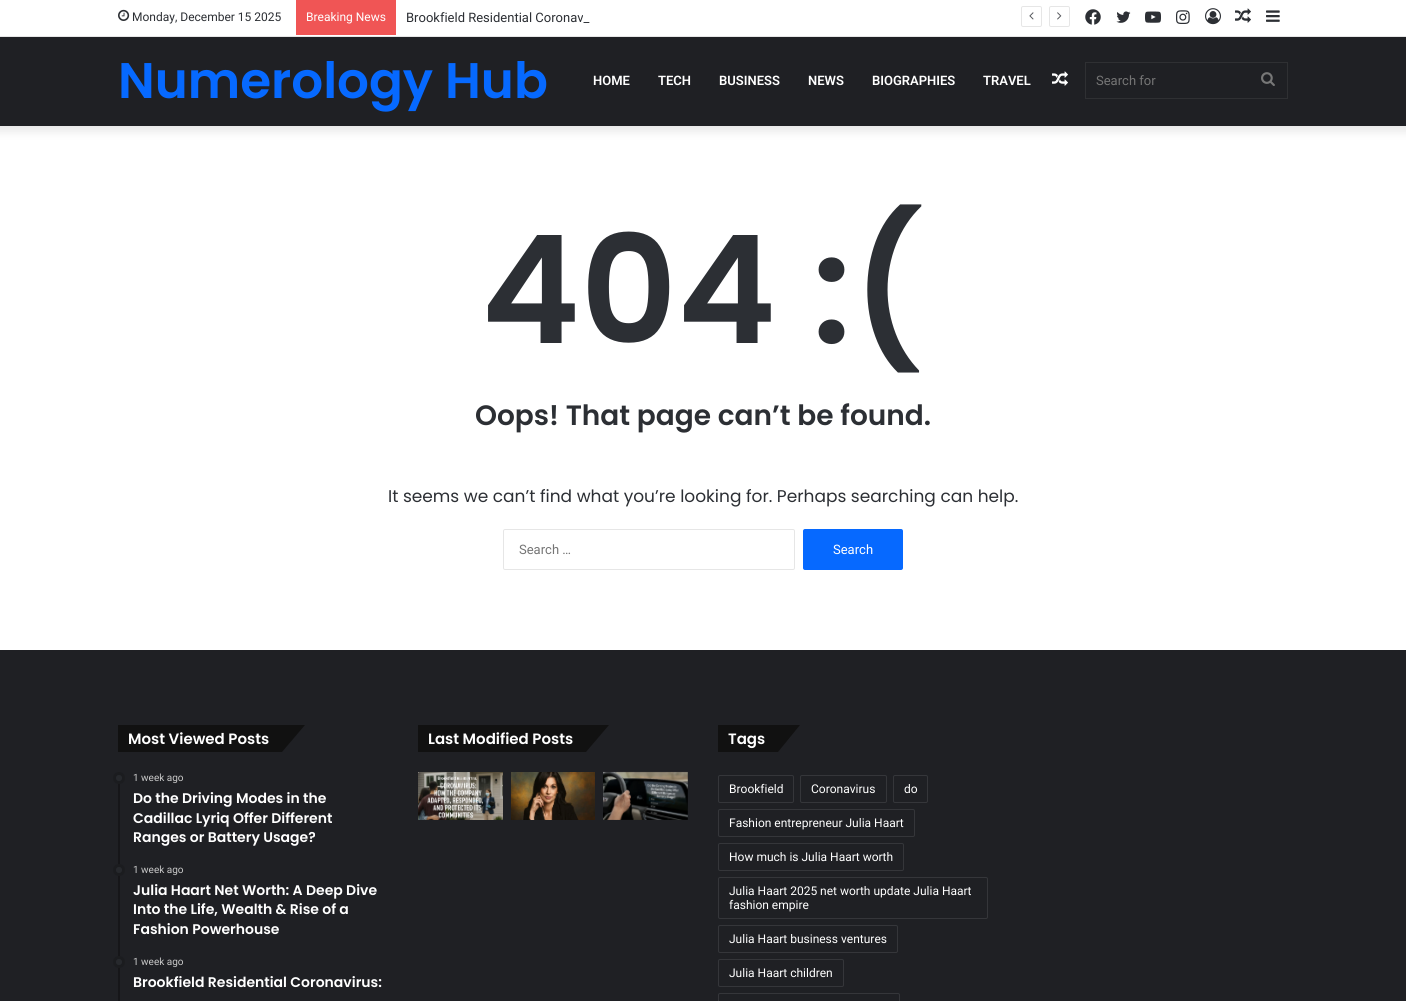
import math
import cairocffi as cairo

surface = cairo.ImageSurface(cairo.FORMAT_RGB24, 1406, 1001)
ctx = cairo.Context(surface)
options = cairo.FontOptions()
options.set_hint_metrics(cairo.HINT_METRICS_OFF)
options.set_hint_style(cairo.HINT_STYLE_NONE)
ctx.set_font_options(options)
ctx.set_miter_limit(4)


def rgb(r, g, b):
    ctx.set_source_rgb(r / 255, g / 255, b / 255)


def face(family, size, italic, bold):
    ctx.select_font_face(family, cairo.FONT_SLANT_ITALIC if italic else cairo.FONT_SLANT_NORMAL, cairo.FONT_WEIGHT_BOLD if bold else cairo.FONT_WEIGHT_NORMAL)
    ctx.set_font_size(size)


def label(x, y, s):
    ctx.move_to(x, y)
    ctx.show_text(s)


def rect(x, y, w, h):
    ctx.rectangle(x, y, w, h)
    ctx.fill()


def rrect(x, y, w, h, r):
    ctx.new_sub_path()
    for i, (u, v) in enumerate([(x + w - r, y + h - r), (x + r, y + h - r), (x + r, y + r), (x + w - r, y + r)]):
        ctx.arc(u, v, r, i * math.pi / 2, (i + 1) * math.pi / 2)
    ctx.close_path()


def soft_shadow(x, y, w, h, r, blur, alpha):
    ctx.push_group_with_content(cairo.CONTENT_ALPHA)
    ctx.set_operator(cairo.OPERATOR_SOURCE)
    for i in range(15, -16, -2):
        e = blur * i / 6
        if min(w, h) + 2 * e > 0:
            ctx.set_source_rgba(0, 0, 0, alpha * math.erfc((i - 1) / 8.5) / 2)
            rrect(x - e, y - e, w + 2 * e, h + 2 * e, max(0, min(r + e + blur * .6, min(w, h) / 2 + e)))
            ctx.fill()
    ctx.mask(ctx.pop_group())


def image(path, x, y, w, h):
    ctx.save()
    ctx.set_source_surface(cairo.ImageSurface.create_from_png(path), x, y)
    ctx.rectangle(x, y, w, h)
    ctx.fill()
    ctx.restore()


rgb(255, 255, 255)
ctx.paint()
rgb(0, 0, 0)
soft_shadow(-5, -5, 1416, 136, 0, 5, 0.1)
rgb(255, 255, 255)
rect(0, 0, 1406, 36)
rgb(230, 230, 230)
rect(0, 36, 1406, 1)
image('image0.png', 118, 9, 12, 12)
face('Roboto', 12, 0, 0)
rgb(44, 47, 52)
label(132, 21, 'Monday, December 15 2025')
rgb(240, 85, 85)
rect(296, 0, 100, 35)
rgb(255, 255, 255)
label(306, 21, 'Breaking News')
face('Roboto', 13, 0, 0)
rgb(44, 47, 52)
label(406, 22, 'Brookfield Residential Coronav_')
rgb(255, 255, 255)
rect(583, 15, 1, 2)
rrect(1021.5, 6.5, 20, 20, 1.5)
rgb(230, 230, 230)
ctx.set_line_width(1)
ctx.stroke()
image('image1.png', 1029, 12, 5, 8)
rrect(1049.5, 6.5, 20, 20, 1.5)
ctx.stroke()
image('image2.png', 1057, 12, 5, 8)
image('image3.png', 1085, 9, 16, 16)
image('image4.png', 1116, 11, 15, 12)
image('image5.png', 1145, 11, 16, 12)
image('image6.png', 1176, 10, 14, 14)
image('image7.png', 1205, 8, 16, 17)
image('image8.png', 1235, 8, 16, 15)
image('image9.png', 1266, 10, 14, 12)
rgb(31, 32, 36)
rect(0, 37, 1406, 89)
face('Poppins SemiBold', 50, 0, 0)
rgb(6, 105, 255)
label(118, 98, 'Numerology Hub')
face('Roboto SemiBold', 13, 0, 0)
rgb(255, 255, 255)
label(593, 85, 'HOME')
label(658, 85, 'TECH')
label(719, 85, 'BUSINESS')
label(808, 85, 'NEWS')
label(872, 85, 'BIOGRAPHIES')
label(983, 85, 'TRAVEL')
image('image10.png', 1052, 71, 16, 15)
ctx.rectangle(1085.5, 62.5, 202, 36)
rgb(47, 48, 51)
ctx.stroke()
face('Roboto', 13, 0, 0)
rgb(117, 117, 117)
label(1096, 85, 'Search for')
image('image11.png', 1261, 72, 14, 14)
face('Poppins SemiBold', 150, 0, 0)
rgb(44, 47, 52)
label(481, 343, '404 :(')
face('Poppins SemiBold', 28, 0, 0)
label(475, 425, 'Oops! That page can’t be found.')
face('Poppins', 17, 0, 0)
label(388, 502, 'It seems we can’t find what you’re looking for. Perhaps searching can help.')
rrect(503.5, 529.5, 291, 40, 1.5)
rgb(230, 230, 230)
ctx.stroke()
face('Roboto', 13, 0, 0)
rgb(117, 117, 117)
label(519, 554, 'Search …')
rgb(6, 105, 255)
rrect(803, 529, 100, 41, 2)
ctx.fill()
rgb(255, 255, 255)
label(833, 554, 'Search')
rgb(31, 32, 36)
rect(0, 650, 1406, 351)
rgb(17, 17, 17)
rect(118, 725, 74, 27)
ctx.new_path()
ctx.move_to(192, 725)
ctx.line_to(305, 725)
ctx.line_to(282, 752)
ctx.line_to(169, 752)
ctx.close_path()
ctx.fill()
face('Poppins SemiBold', 15, 0, 0)
rgb(255, 255, 255)
label(128, 744, 'Most Viewed Posts')
rgb(22, 22, 25)
rect(118, 772, 2, 229)
rgb(39, 41, 45)
ctx.new_path()
ctx.arc(119, 778, 4.5, 0, 2 * math.pi)
ctx.fill_preserve()
rgb(27, 28, 31)
ctx.set_line_width(3)
ctx.stroke()
face('Roboto', 10, 0, 0)
rgb(202, 202, 202)
label(133, 781, '1 week ago')
face('Poppins SemiBold', 14, 0, 0)
rgb(255, 255, 255)
label(133, 803, 'Do the Driving Modes in the')
label(133, 823, 'Cadillac Lyriq Offer Different')
label(133, 842, 'Ranges or Battery Usage?')
rgb(39, 41, 45)
ctx.new_path()
ctx.arc(119, 870, 4.5, 0, 2 * math.pi)
ctx.fill_preserve()
rgb(27, 28, 31)
ctx.stroke()
face('Roboto', 10, 0, 0)
rgb(202, 202, 202)
label(133, 873, '1 week ago')
face('Poppins SemiBold', 14, 0, 0)
rgb(255, 255, 255)
label(133, 895, 'Julia Haart Net Worth: A Deep Dive')
label(133, 914, 'Into the Life, Wealth & Rise of a')
label(133, 934, 'Fashion Powerhouse')
rgb(39, 41, 45)
ctx.new_path()
ctx.arc(119, 962, 4.5, 0, 2 * math.pi)
ctx.fill_preserve()
rgb(27, 28, 31)
ctx.stroke()
face('Roboto', 10, 0, 0)
rgb(202, 202, 202)
label(133, 965, '1 week ago')
face('Poppins SemiBold', 14, 0, 0)
rgb(255, 255, 255)
label(133, 987, 'Brookfield Residential Coronavirus:')
rgb(17, 17, 17)
rect(418, 725, 75, 27)
ctx.new_path()
ctx.move_to(493, 725)
ctx.line_to(609, 725)
ctx.line_to(586, 752)
ctx.line_to(470, 752)
ctx.close_path()
ctx.fill()
face('Poppins SemiBold', 15, 0, 0)
rgb(255, 255, 255)
label(428, 744, 'Last Modified Posts')
image('image12.png', 418, 772, 85, 48)
image('image13.png', 511, 772, 84, 48)
image('image14.png', 603, 771, 85, 49)
rgb(17, 17, 17)
rect(718, 725, 42, 27)
ctx.new_path()
ctx.move_to(760, 725)
ctx.line_to(800, 725)
ctx.line_to(778, 752)
ctx.line_to(738, 752)
ctx.close_path()
ctx.fill()
rgb(255, 255, 255)
label(728, 744, 'Tags')
rrect(718.5, 775.5, 75, 27, 1.5)
rgb(53, 54, 58)
ctx.set_line_width(1)
ctx.stroke()
face('Roboto', 12, 0, 0)
rgb(255, 255, 255)
label(729, 793, 'Brookfield')
rrect(800.5, 775.5, 86, 27, 1.5)
rgb(53, 54, 58)
ctx.stroke()
rgb(255, 255, 255)
label(811, 793, 'Coronavirus')
rrect(893.5, 775.5, 34, 27, 1.5)
rgb(53, 54, 58)
ctx.stroke()
rgb(255, 255, 255)
label(904, 793, 'do')
rrect(718.5, 809.5, 196, 27, 1.5)
rgb(53, 54, 58)
ctx.stroke()
rgb(255, 255, 255)
label(729, 827, 'Fashion entrepreneur Julia Haart')
rrect(718.5, 843.5, 185, 27, 1.5)
rgb(53, 54, 58)
ctx.stroke()
rgb(255, 255, 255)
label(729, 861, 'How much is Julia Haart worth')
rrect(718.5, 877.5, 269, 41, 1.5)
rgb(53, 54, 58)
ctx.stroke()
rgb(255, 255, 255)
label(729, 895, 'Julia Haart 2025 net worth update Julia Haart')
label(729, 909, 'fashion empire')
rrect(718.5, 925.5, 179, 27, 1.5)
rgb(53, 54, 58)
ctx.stroke()
rgb(255, 255, 255)
label(729, 943, 'Julia Haart business ventures')
rrect(718.5, 959.5, 125, 27, 1.5)
rgb(53, 54, 58)
ctx.stroke()
rgb(255, 255, 255)
label(729, 977, 'Julia Haart children')
rrect(718.5, 993.5, 181, 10, 1.5)
rgb(53, 54, 58)
ctx.stroke()
surface.write_to_png('render.png')
